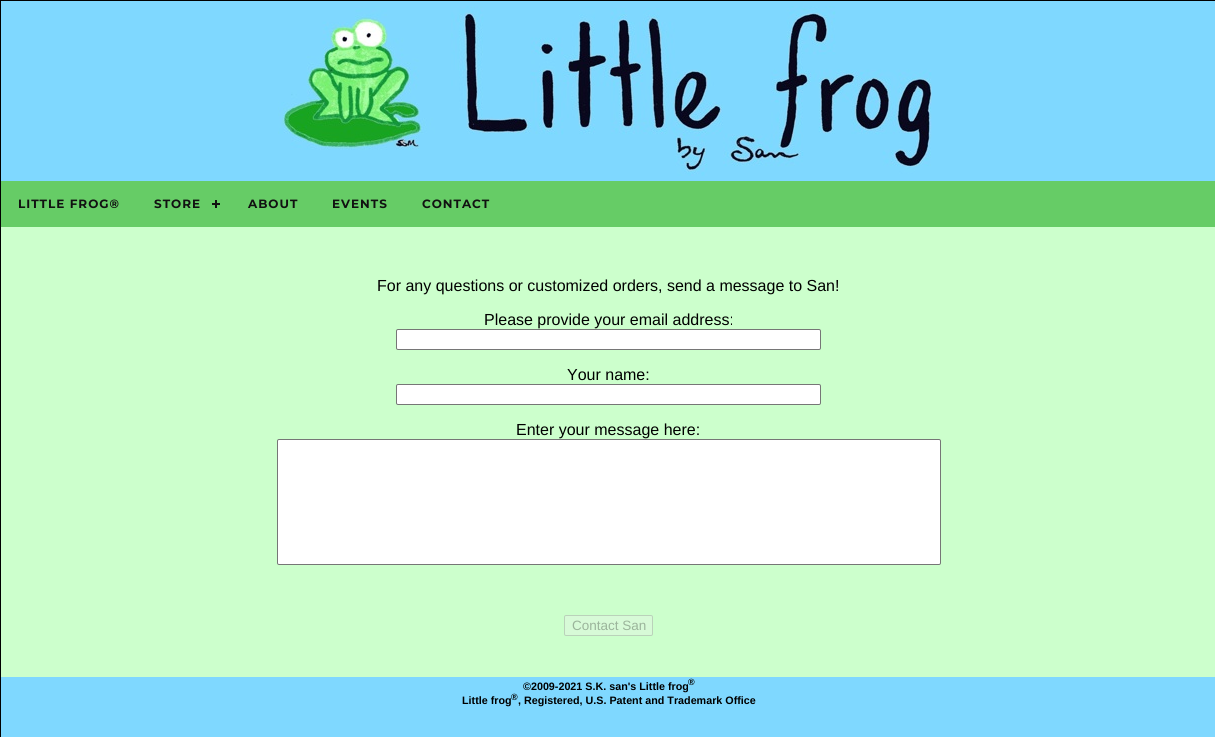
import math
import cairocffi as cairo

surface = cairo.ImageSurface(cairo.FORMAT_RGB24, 1215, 737)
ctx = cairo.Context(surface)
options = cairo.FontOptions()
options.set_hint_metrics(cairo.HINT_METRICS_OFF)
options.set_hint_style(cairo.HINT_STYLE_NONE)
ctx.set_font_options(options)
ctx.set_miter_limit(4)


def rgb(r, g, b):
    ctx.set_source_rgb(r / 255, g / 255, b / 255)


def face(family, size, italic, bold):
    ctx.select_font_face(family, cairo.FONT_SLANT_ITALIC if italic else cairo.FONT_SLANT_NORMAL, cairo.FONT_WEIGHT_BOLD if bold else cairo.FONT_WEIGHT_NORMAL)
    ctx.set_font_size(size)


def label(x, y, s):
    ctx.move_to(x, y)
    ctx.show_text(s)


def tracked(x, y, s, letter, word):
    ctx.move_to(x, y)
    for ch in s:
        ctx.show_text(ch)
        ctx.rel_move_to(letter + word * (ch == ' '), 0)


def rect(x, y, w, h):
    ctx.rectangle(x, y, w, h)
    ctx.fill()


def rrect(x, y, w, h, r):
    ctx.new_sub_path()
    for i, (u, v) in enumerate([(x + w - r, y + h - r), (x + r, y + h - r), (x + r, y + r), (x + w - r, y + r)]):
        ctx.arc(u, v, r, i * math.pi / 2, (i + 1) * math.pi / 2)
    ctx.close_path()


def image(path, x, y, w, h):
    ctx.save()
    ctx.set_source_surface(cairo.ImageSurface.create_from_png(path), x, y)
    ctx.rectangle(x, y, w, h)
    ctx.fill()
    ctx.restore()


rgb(204, 255, 204)
ctx.paint()
ctx.rectangle(0.5, 0.5, 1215, 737)
rgb(0, 0, 0)
ctx.set_line_width(1)
ctx.stroke()
rgb(127, 216, 255)
rect(1, 1, 1214, 180)
image('image0.png', 278, 6, 654, 170)
rgb(102, 204, 102)
rect(1, 181, 1214, 46)
face('Montserrat', 12, 0, 1)
rgb(17, 17, 17)
tracked(18, 208, 'LITTLE FROG®', 1, 0)
tracked(154, 208, 'STORE', 1, 0)
rect(215, 200, 2, 8)
rect(212, 203, 8, 2)
tracked(248, 208, 'ABOUT', 1, 0)
tracked(332, 208, 'EVENTS', 1, 0)
tracked(422, 208, 'CONTACT', 1, 0)
face('Liberation Sans', 16, 0, 0)
rgb(0, 0, 0)
label(377, 291, 'For any questions or customized orders, send a message to San!')
label(484, 325, 'Please provide your email address:')
rgb(255, 255, 255)
rrect(396.5, 329.5, 424, 20, 1.5)
ctx.fill_preserve()
rgb(118, 118, 118)
ctx.stroke()
rgb(0, 0, 0)
label(567, 380, 'Your name:')
rgb(255, 255, 255)
rrect(396.5, 384.5, 424, 20, 1.5)
ctx.fill_preserve()
rgb(118, 118, 118)
ctx.stroke()
rgb(0, 0, 0)
label(516, 435, 'Enter your message here:')
rgb(255, 255, 255)
rrect(277.5, 439.5, 663, 125, 1.5)
ctx.fill_preserve()
rgb(118, 118, 118)
ctx.stroke()
rgb(215, 250, 215)
rrect(564.5, 615.5, 88, 20, 1.5)
ctx.fill_preserve()
rgb(186, 210, 186)
ctx.stroke()
face('Liberation Sans', 13.5, 0, 0)
rgb(155, 180, 155)
label(572, 630, 'Contact San')
rgb(127, 216, 255)
rect(1, 677, 1214, 60)
face('Liberation Sans', 10.75, 0, 1)
rgb(0, 0, 0)
label(523, 690, '©2009-2021 S.K. san\'s Little frog')
face('Liberation Sans', 9, 0, 1)
label(688, 685, '®')
face('Liberation Sans', 10.75, 0, 1)
label(462, 704, 'Little frog')
face('Liberation Sans', 9, 0, 1)
label(511, 700, '®')
face('Liberation Sans', 10.75, 0, 1)
label(518, 704, ', Registered, U.S. Patent and Trademark Office')
surface.write_to_png('render.png')
